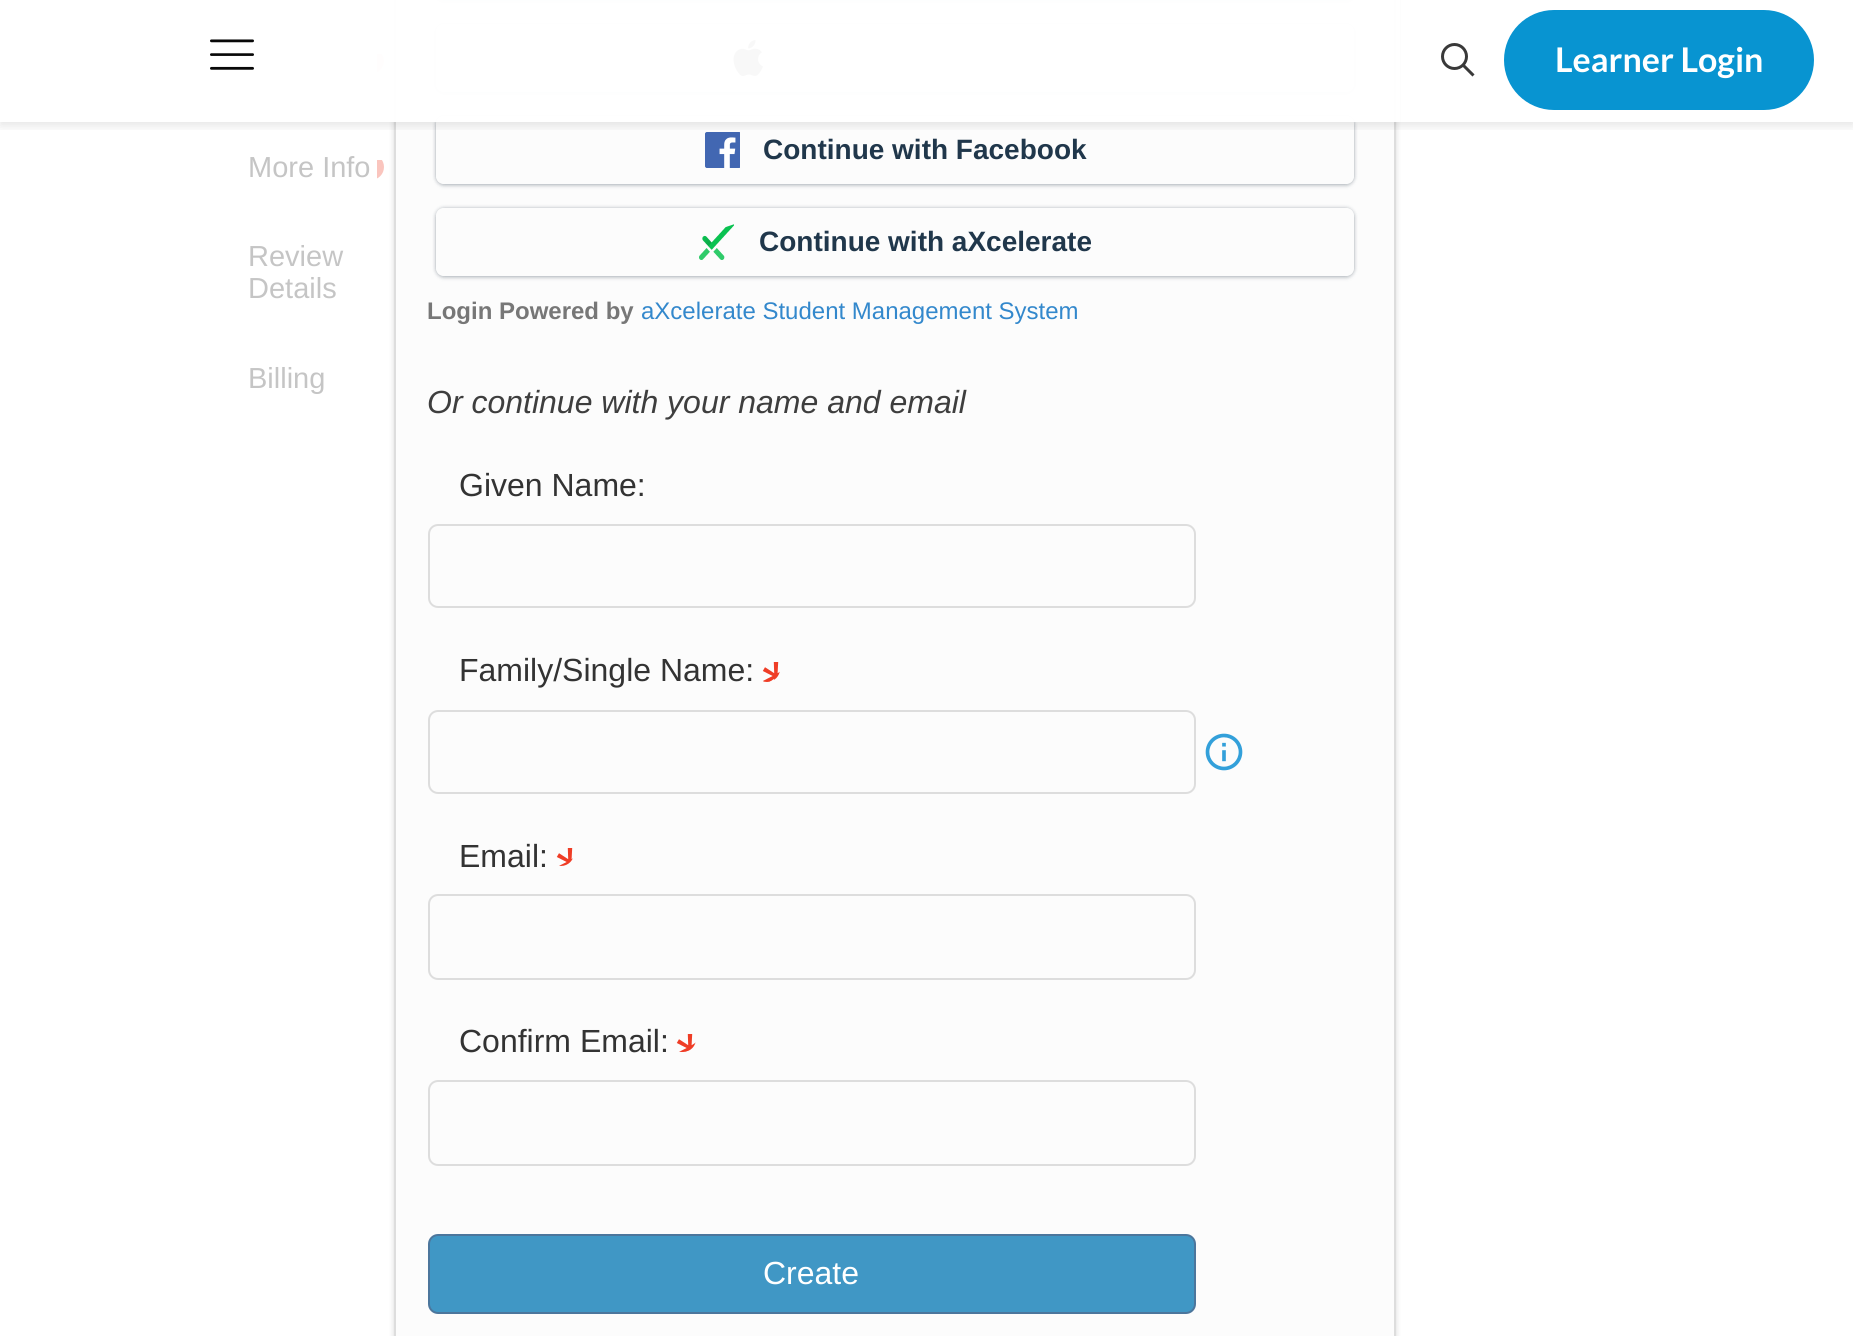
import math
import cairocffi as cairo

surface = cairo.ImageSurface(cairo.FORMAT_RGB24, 1853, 1336)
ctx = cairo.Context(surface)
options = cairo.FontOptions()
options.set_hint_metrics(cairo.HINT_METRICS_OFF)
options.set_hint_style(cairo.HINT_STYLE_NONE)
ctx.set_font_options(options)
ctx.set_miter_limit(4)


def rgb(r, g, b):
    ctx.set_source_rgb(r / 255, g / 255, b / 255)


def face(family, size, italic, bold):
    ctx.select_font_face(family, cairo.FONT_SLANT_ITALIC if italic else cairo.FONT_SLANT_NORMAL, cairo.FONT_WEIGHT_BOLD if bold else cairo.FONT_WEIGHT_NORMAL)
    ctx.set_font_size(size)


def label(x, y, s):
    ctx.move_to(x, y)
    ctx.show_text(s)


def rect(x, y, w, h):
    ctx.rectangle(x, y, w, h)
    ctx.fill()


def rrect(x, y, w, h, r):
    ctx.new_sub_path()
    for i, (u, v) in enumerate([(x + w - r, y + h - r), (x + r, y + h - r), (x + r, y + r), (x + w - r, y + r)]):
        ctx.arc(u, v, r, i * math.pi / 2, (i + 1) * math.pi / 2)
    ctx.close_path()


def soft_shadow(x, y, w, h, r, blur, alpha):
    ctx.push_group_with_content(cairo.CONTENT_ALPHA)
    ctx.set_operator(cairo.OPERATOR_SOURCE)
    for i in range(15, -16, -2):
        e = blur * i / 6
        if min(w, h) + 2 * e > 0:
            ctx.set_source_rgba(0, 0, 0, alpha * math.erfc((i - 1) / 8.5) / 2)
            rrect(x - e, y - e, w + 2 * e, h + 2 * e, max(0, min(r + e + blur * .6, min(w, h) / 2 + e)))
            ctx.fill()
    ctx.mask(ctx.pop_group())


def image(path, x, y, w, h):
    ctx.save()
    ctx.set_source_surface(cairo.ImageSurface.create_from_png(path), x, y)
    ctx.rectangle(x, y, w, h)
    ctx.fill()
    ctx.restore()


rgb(255, 255, 255)
ctx.paint()
ctx.save()
rrect(358, 48, 26, 26, 13)
ctx.clip()
rgb(250, 197, 190)
rect(377, 54, 7, 20)
ctx.restore()
rgb(0, 0, 0)
soft_shadow(394, -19, 1002, 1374, 10, 3, 0.15)
rgb(252, 252, 252)
ctx.rectangle(395, -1, 1000, 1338)
ctx.fill_preserve()
rgb(221, 221, 221)
ctx.stroke()
ctx.save()
ctx.set_fill_rule(cairo.FILL_RULE_EVEN_ODD)
ctx.new_path()
ctx.move_to(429, 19)
ctx.line_to(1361, 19)
ctx.line_to(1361, 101)
ctx.line_to(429, 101)
ctx.close_path()
ctx.move_to(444, 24)
ctx.line_to(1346, 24)
ctx.curve_to(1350.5, 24, 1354, 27.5, 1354, 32)
ctx.line_to(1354, 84)
ctx.curve_to(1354, 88.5, 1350.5, 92, 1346, 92)
ctx.line_to(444, 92)
ctx.curve_to(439.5, 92, 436, 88.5, 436, 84)
ctx.line_to(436, 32)
ctx.curve_to(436, 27.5, 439.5, 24, 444, 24)
ctx.close_path()
ctx.clip()
rgb(51, 67, 82)
soft_shadow(436, 26, 918, 68, 8, 2, 0.18)
ctx.restore()
ctx.save()
ctx.set_fill_rule(cairo.FILL_RULE_EVEN_ODD)
ctx.new_path()
ctx.move_to(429, 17)
ctx.line_to(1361, 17)
ctx.line_to(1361, 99)
ctx.line_to(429, 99)
ctx.close_path()
ctx.move_to(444, 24)
ctx.line_to(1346, 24)
ctx.curve_to(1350.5, 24, 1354, 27.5, 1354, 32)
ctx.line_to(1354, 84)
ctx.curve_to(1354, 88.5, 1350.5, 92, 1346, 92)
ctx.line_to(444, 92)
ctx.curve_to(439.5, 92, 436, 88.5, 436, 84)
ctx.line_to(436, 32)
ctx.curve_to(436, 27.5, 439.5, 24, 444, 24)
ctx.close_path()
ctx.clip()
rgb(51, 67, 82)
soft_shadow(436, 24, 918, 68, 8, 2, 0.33)
ctx.restore()
image('image1.png', 733, 40, 30, 36)
ctx.save()
ctx.set_fill_rule(cairo.FILL_RULE_EVEN_ODD)
ctx.new_path()
ctx.move_to(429, 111)
ctx.line_to(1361, 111)
ctx.line_to(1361, 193)
ctx.line_to(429, 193)
ctx.close_path()
ctx.move_to(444, 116)
ctx.line_to(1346, 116)
ctx.curve_to(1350.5, 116, 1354, 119.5, 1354, 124)
ctx.line_to(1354, 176)
ctx.curve_to(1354, 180.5, 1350.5, 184, 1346, 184)
ctx.line_to(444, 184)
ctx.curve_to(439.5, 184, 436, 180.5, 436, 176)
ctx.line_to(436, 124)
ctx.curve_to(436, 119.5, 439.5, 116, 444, 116)
ctx.close_path()
ctx.clip()
rgb(51, 67, 82)
soft_shadow(436, 118, 918, 68, 8, 2, 0.18)
ctx.restore()
ctx.save()
ctx.set_fill_rule(cairo.FILL_RULE_EVEN_ODD)
ctx.new_path()
ctx.move_to(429, 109)
ctx.line_to(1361, 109)
ctx.line_to(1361, 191)
ctx.line_to(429, 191)
ctx.close_path()
ctx.move_to(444, 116)
ctx.line_to(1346, 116)
ctx.curve_to(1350.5, 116, 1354, 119.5, 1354, 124)
ctx.line_to(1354, 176)
ctx.curve_to(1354, 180.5, 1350.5, 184, 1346, 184)
ctx.line_to(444, 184)
ctx.curve_to(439.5, 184, 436, 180.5, 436, 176)
ctx.line_to(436, 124)
ctx.curve_to(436, 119.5, 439.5, 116, 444, 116)
ctx.close_path()
ctx.clip()
rgb(51, 67, 82)
soft_shadow(436, 116, 918, 68, 8, 2, 0.33)
ctx.restore()
image('image2.png', 705, 132, 35, 36)
ctx.save()
ctx.rectangle(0, 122, 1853, 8)
ctx.clip()
rgb(0, 0, 0)
soft_shadow(0, 4, 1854, 122, 0, 5, 0.1)
ctx.restore()
rgb(51, 67, 82)
soft_shadow(436, -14, 918, 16, 8, 2, 0.18)
soft_shadow(436, -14, 918, 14, 8, 2, 0.33)
ctx.set_source_rgba(1, 1, 1, 0.97)
rect(377, 0, 1023, 122)
image('image0.png', 210, 39, 44, 31)
ctx.arc(1454.5, 56.5, 12, 0, 2 * math.pi)
rgb(57, 57, 57)
ctx.set_line_width(3)
ctx.stroke()
ctx.new_path()
ctx.move_to(1463, 65)
ctx.line_to(1473.5, 75.5)
ctx.stroke()
rgb(8, 148, 209)
rrect(1504, 10, 310, 100, 50)
ctx.fill()
face('Lato', 34, 0, 1)
rgb(255, 255, 255)
label(1555, 72, 'Learner Login')
face('Liberation Sans', 29, 0, 0)
rgb(197, 197, 197)
label(248, 177, 'More Info')
ctx.save()
rrect(358, 154, 26, 26, 13)
ctx.clip()
rgb(250, 197, 190)
rect(377, 160, 7, 20)
ctx.restore()
label(248, 266, 'Review')
label(248, 298, 'Details')
label(248, 388, 'Billing')
face('Liberation Sans', 28, 0, 1)
rgb(32, 55, 75)
label(763, 159, 'Continue with Facebook')
ctx.save()
ctx.set_fill_rule(cairo.FILL_RULE_EVEN_ODD)
ctx.new_path()
ctx.move_to(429, 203)
ctx.line_to(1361, 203)
ctx.line_to(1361, 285)
ctx.line_to(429, 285)
ctx.close_path()
ctx.move_to(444, 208)
ctx.line_to(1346, 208)
ctx.curve_to(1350.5, 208, 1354, 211.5, 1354, 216)
ctx.line_to(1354, 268)
ctx.curve_to(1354, 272.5, 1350.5, 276, 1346, 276)
ctx.line_to(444, 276)
ctx.curve_to(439.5, 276, 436, 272.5, 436, 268)
ctx.line_to(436, 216)
ctx.curve_to(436, 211.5, 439.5, 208, 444, 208)
ctx.close_path()
ctx.clip()
rgb(51, 67, 82)
soft_shadow(436, 210, 918, 68, 8, 2, 0.18)
ctx.restore()
ctx.save()
ctx.set_fill_rule(cairo.FILL_RULE_EVEN_ODD)
ctx.new_path()
ctx.move_to(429, 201)
ctx.line_to(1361, 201)
ctx.line_to(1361, 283)
ctx.line_to(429, 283)
ctx.close_path()
ctx.move_to(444, 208)
ctx.line_to(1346, 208)
ctx.curve_to(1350.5, 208, 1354, 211.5, 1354, 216)
ctx.line_to(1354, 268)
ctx.curve_to(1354, 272.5, 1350.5, 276, 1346, 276)
ctx.line_to(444, 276)
ctx.curve_to(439.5, 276, 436, 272.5, 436, 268)
ctx.line_to(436, 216)
ctx.curve_to(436, 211.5, 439.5, 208, 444, 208)
ctx.close_path()
ctx.clip()
rgb(51, 67, 82)
soft_shadow(436, 208, 918, 68, 8, 2, 0.33)
ctx.restore()
image('image3.png', 699, 224, 35, 36)
label(759, 251, 'Continue with aXcelerate')
face('Liberation Sans', 24, 0, 1)
rgb(119, 119, 119)
label(427, 319, 'Login Powered by')
face('Liberation Sans', 24, 0, 0)
rgb(51, 136, 204)
label(641, 319, 'aXcelerate Student Management System')
face('Liberation Sans', 32, 1, 0)
rgb(62, 62, 62)
label(427, 413, 'Or continue with your name and email')
face('Liberation Sans', 32, 0, 0)
rgb(51, 51, 51)
label(459, 496, 'Given Name:')
rrect(429, 525, 766, 82, 9)
rgb(221, 221, 221)
ctx.set_line_width(2)
ctx.stroke()
rgb(51, 51, 51)
label(459, 681, 'Family/Single Name:')
image('image4.png', 762, 662, 18, 20)
rrect(429, 711, 766, 82, 9)
rgb(221, 221, 221)
ctx.stroke()
image('image5.png', 1205, 733, 38, 38)
rgb(51, 51, 51)
label(459, 867, 'Email:')
image('image6.png', 556, 848, 17, 18)
rrect(429, 895, 766, 84, 9)
rgb(221, 221, 221)
ctx.stroke()
rgb(51, 51, 51)
label(459, 1052, 'Confirm Email:')
image('image7.png', 676, 1034, 20, 18)
rrect(429, 1081, 766, 84, 9)
rgb(221, 221, 221)
ctx.stroke()
rgb(64, 151, 197)
rrect(429, 1235, 766, 78, 9)
ctx.fill_preserve()
rgb(76, 118, 156)
ctx.stroke()
rgb(255, 255, 255)
label(763, 1284, 'Create')
surface.write_to_png('render.png')
